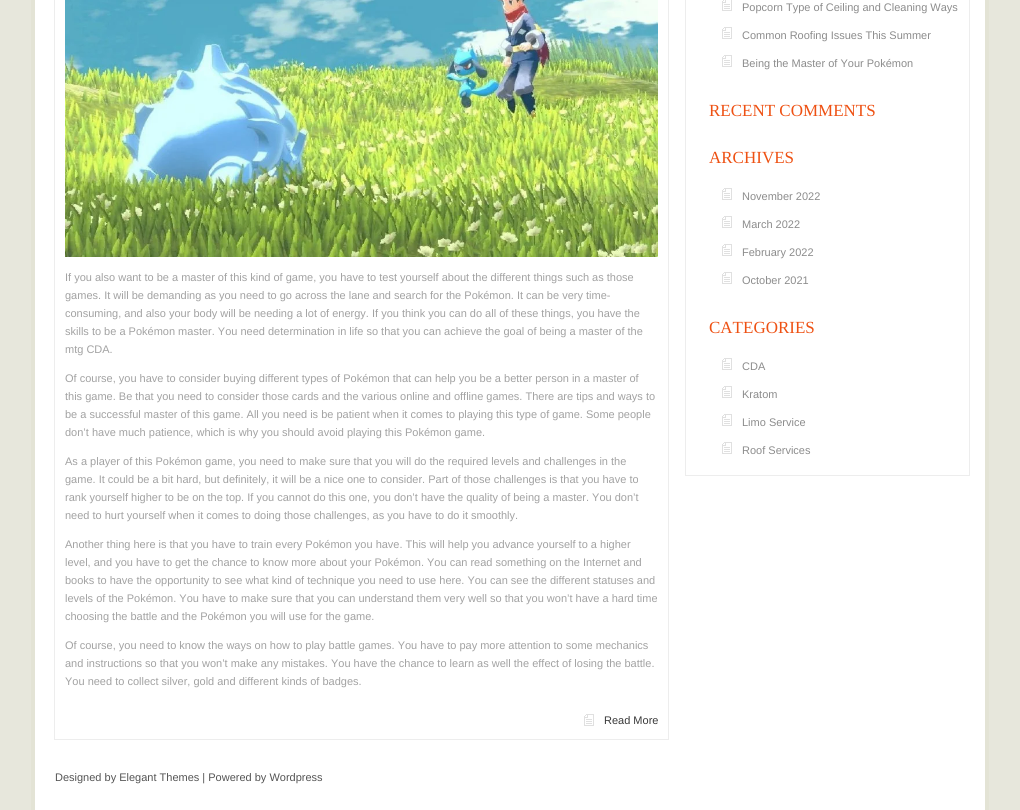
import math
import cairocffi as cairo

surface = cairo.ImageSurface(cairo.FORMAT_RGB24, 1020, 810)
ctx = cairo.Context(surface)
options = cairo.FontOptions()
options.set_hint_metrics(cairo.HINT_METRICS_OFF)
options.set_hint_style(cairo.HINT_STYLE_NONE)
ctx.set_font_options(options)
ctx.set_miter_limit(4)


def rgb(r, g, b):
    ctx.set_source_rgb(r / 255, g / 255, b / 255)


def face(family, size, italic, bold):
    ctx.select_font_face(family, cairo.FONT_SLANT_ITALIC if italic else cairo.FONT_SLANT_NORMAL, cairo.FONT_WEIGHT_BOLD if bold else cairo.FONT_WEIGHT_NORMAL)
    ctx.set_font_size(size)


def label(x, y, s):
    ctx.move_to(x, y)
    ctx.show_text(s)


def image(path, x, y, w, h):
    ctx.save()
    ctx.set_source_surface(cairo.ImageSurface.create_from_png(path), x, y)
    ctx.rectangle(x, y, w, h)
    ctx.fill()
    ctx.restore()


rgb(231, 231, 220)
ctx.paint()
rgb(255, 255, 255)
ctx.rectangle(33, -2, 954, 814)
ctx.fill_preserve()
rgb(227, 227, 213)
ctx.set_line_width(4)
ctx.stroke()
ctx.rectangle(54.5, -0.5, 614, 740)
rgb(237, 237, 237)
ctx.set_line_width(1)
ctx.stroke()
image('image0.png', 65, 0, 593, 257)
face('Liberation Sans', 11, 0, 0)
rgb(162, 162, 162)
label(65, 281, 'If you also want to be a master of this kind of game, you have to test yourself about the different things such as those')
label(65, 299, 'games. It will be demanding as you need to go across the lane and search for the Pokémon. It can be very time-')
label(65, 317, 'consuming, and also your body will be needing a lot of energy. If you think you can do all of these things, you have the')
label(65, 335, 'skills to be a Pokémon master. You need determination in life so that you can achieve the goal of being a master of the')
label(65, 353, 'mtg CDA.')
label(65, 382, 'Of course, you have to consider buying different types of Pokémon that can help you be a better person in a master of')
label(65, 400, 'this game. Be that you need to consider those cards and the various online and offline games. There are tips and ways to')
label(65, 418, 'be a successful master of this game. All you need is be patient when it comes to playing this type of game. Some people')
label(65, 436, 'don’t have much patience, which is why you should avoid playing this Pokémon game.')
label(65, 465, 'As a player of this Pokémon game, you need to make sure that you will do the required levels and challenges in the')
label(65, 483, 'game. It could be a bit hard, but definitely, it will be a nice one to consider. Part of those challenges is that you have to')
label(65, 501, 'rank yourself higher to be on the top. If you cannot do this one, you don’t have the quality of being a master. You don’t')
label(65, 519, 'need to hurt yourself when it comes to doing those challenges, as you have to do it smoothly.')
label(65, 548, 'Another thing here is that you have to train every Pokémon you have. This will help you advance yourself to a higher')
label(65, 566, 'level, and you have to get the chance to know more about your Pokémon. You can read something on the Internet and')
label(65, 584, 'books to have the opportunity to see what kind of technique you need to use here. You can see the different statuses and')
label(65, 602, 'levels of the Pokémon. You have to make sure that you can understand them very well so that you won’t have a hard time')
label(65, 620, 'choosing the battle and the Pokémon you will use for the game.')
label(65, 649, 'Of course, you need to know the ways on how to play battle games. You have to pay more attention to some mechanics')
label(65, 667, 'and instructions so that you won’t make any mistakes. You have the chance to learn as well the effect of losing the battle.')
label(65, 685, 'You need to collect silver, gold and different kinds of badges.')
image('image1.png', 584, 714, 10, 12)
rgb(57, 57, 57)
label(604, 724, 'Read More')
ctx.rectangle(685.5, -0.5, 284, 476)
rgb(237, 237, 237)
ctx.stroke()
image('image2.png', 722, 0, 10, 11)
rgb(140, 140, 140)
label(742, 11, 'Popcorn Type of Ceiling and Cleaning Ways')
image('image1.png', 722, 27, 10, 12)
label(742, 39, 'Common Roofing Issues This Summer')
image('image1.png', 722, 55, 10, 12)
label(742, 67, 'Being the Master of Your Pokémon')
face('Liberation Serif', 17, 0, 0)
rgb(238, 81, 19)
label(709, 116, 'RECENT COMMENTS')
label(709, 163, 'ARCHIVES')
image('image1.png', 722, 188, 10, 12)
face('Liberation Sans', 11, 0, 0)
rgb(140, 140, 140)
label(742, 200, 'November 2022')
image('image1.png', 722, 216, 10, 12)
label(742, 228, 'March 2022')
image('image1.png', 722, 244, 10, 12)
label(742, 256, 'February 2022')
image('image1.png', 722, 272, 10, 12)
label(742, 284, 'October 2021')
face('Liberation Serif', 17, 0, 0)
rgb(238, 81, 19)
label(709, 333, 'CATEGORIES')
image('image1.png', 722, 358, 10, 12)
face('Liberation Sans', 11, 0, 0)
rgb(140, 140, 140)
label(742, 370, 'CDA')
image('image1.png', 722, 386, 10, 12)
label(742, 398, 'Kratom')
image('image1.png', 722, 414, 10, 12)
label(742, 426, 'Limo Service')
image('image1.png', 722, 442, 10, 12)
label(742, 454, 'Roof Services')
rgb(84, 84, 84)
label(55, 781, 'Designed by Elegant Themes | Powered by Wordpress')
surface.write_to_png('render.png')
